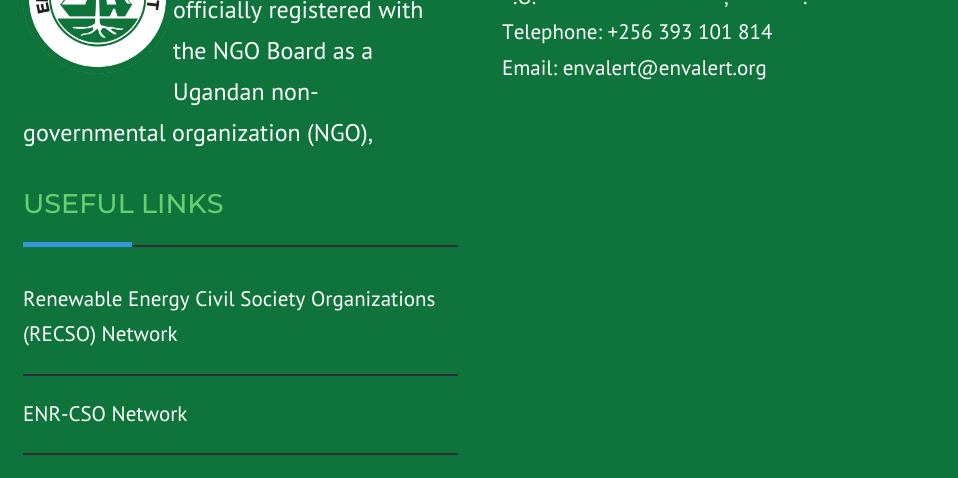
import math
import cairocffi as cairo

surface = cairo.ImageSurface(cairo.FORMAT_RGB24, 958, 478)
ctx = cairo.Context(surface)
options = cairo.FontOptions()
options.set_hint_metrics(cairo.HINT_METRICS_OFF)
options.set_hint_style(cairo.HINT_STYLE_NONE)
ctx.set_font_options(options)
ctx.set_miter_limit(4)


def rgb(r, g, b):
    ctx.set_source_rgb(r / 255, g / 255, b / 255)


def face(family, size, italic, bold):
    ctx.select_font_face(family, cairo.FONT_SLANT_ITALIC if italic else cairo.FONT_SLANT_NORMAL, cairo.FONT_WEIGHT_BOLD if bold else cairo.FONT_WEIGHT_NORMAL)
    ctx.set_font_size(size)


def label(x, y, s):
    ctx.move_to(x, y)
    ctx.show_text(s)


def rect(x, y, w, h):
    ctx.rectangle(x, y, w, h)
    ctx.fill()


def image(path, x, y, w, h):
    ctx.save()
    ctx.set_source_surface(cairo.ImageSurface.create_from_png(path), x, y)
    ctx.rectangle(x, y, w, h)
    ctx.fill()
    ctx.restore()


rgb(15, 116, 59)
ctx.paint()
image('image0.png', 22, 0, 151, 74)
face('PT Sans', 24, 0, 0)
rgb(255, 255, 255)
label(173, 18, 'officially registered with')
label(173, 59, 'the NGO Board as a')
label(173, 100, 'Ugandan non-')
label(23, 141, 'governmental organization (NGO),')
face('PT Sans', 21, 0, 0)
label(513, 4, '.O.')
label(724, 4, ',')
label(803, 4, '.')
label(502, 39, 'Telephone: +256 393 101 814')
label(502, 75, 'Email: envalert@envalert.org')
rgb(46, 46, 46)
rect(132, 245, 326, 2)
face('Montserrat Medium', 27, 0, 0)
rgb(105, 205, 114)
label(23, 213, 'USEFUL LINKS')
rgb(52, 152, 219)
rect(23, 242, 109, 5)
rgb(46, 46, 46)
rect(23, 374, 435, 2)
face('PT Sans', 21, 0, 0)
rgb(255, 255, 255)
label(23, 306, 'Renewable Energy Civil Society Organizations')
label(23, 341, '(RECSO) Network')
rgb(46, 46, 46)
rect(23, 453, 435, 2)
rgb(255, 255, 255)
label(23, 421, 'ENR-CSO Network')
surface.write_to_png('render.png')
